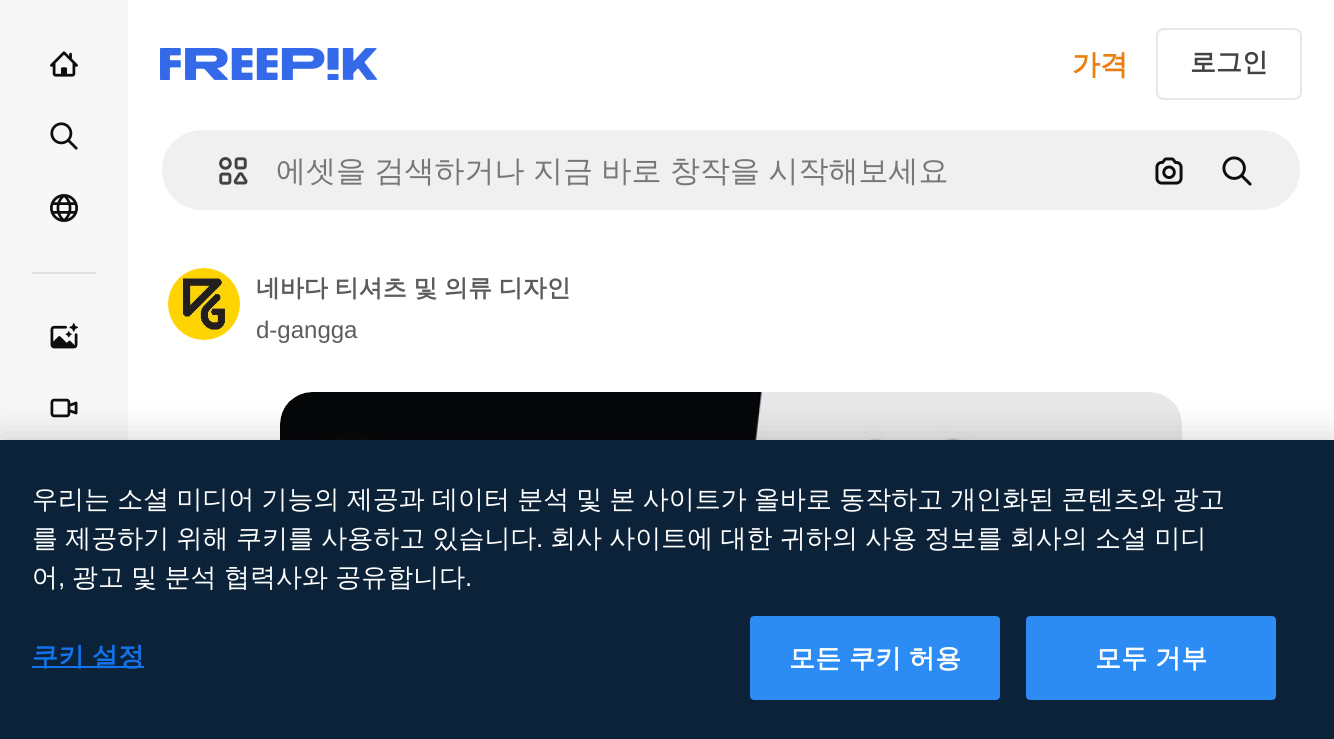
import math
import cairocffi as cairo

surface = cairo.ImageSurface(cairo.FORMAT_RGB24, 1334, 739)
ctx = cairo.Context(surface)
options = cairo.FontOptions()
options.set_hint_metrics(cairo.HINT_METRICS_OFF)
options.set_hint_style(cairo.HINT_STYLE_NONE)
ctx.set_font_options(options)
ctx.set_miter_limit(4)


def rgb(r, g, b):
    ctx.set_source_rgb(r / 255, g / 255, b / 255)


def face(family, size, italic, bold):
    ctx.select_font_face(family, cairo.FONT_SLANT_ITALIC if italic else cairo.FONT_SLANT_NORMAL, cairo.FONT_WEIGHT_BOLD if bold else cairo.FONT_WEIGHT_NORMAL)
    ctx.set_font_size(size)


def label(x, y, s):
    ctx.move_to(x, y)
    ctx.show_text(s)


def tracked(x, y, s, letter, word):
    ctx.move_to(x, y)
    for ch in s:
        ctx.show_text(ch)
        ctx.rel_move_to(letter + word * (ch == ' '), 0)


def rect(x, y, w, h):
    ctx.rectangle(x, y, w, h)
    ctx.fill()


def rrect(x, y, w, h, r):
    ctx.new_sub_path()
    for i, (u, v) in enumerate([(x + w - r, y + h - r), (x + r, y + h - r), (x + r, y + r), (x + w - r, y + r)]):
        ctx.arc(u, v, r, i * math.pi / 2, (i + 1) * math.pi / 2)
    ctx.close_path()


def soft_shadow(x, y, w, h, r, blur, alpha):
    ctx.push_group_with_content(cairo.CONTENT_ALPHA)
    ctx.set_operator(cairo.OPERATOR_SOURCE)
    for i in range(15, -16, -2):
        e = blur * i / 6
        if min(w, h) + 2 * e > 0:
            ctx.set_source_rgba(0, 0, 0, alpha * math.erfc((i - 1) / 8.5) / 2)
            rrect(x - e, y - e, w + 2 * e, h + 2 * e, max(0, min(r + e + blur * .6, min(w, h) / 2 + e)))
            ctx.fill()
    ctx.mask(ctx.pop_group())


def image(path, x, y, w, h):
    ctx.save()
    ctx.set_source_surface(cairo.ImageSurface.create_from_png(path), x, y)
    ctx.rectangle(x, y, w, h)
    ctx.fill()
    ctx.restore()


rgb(255, 255, 255)
ctx.paint()
rgb(247, 247, 247)
rect(0, 0, 128, 440)
image('image0.png', 50, 51, 28, 26)
image('image1.png', 50, 122, 28, 28)
image('image2.png', 50, 194, 28, 28)
rgb(224, 224, 224)
rect(32, 272, 64, 2)
image('image3.png', 50, 323, 28, 26)
image('image4.png', 50, 398, 28, 20)
image('image5.png', 160, 48, 218, 32)
face('WenQuanYi Zen Hei', 28, 0, 1)
rgb(234, 126, 17)
label(1072, 74, '가격')
rrect(1157, 29, 144, 70, 7)
rgb(231, 231, 231)
ctx.stroke()
face('WenQuanYi Zen Hei', 26, 0, 1)
rgb(66, 66, 66)
label(1190, 71, '로그인')
rgb(240, 240, 240)
rrect(161, 129, 1140, 82, 41)
ctx.fill_preserve()
rgb(255, 255, 255)
ctx.stroke()
image('image6.png', 219, 157, 29, 28)
face('WenQuanYi Zen Hei Medium', 30, 0, 0)
rgb(119, 119, 119)
tracked(276, 181, '에셋을 검색하거나 지금 바로 창작을 시작해보세요', 0, -0.5)
image('image7.png', 1155, 157, 28, 28)
image('image8.png', 1222, 156, 30, 30)
image('image9.png', 168, 268, 72, 72)
face('WenQuanYi Zen Hei', 24, 0, 1)
rgb(92, 92, 92)
tracked(256, 296, '네바다 티셔츠 및 의류 디자인', 0, -0.5)
face('Liberation Sans', 24, 0, 0)
label(256, 338, 'd-gangga')
image('image10.png', 280, 392, 902, 48)
rgb(10, 10, 11)
ctx.arc(352, 464, 32, 0, 2 * math.pi)
ctx.fill()
rgb(0, 0, 0)
soft_shadow(0, 440, 1334, 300, 0, 18, 0.2)
rgb(11, 34, 57)
rect(0, 440, 1334, 299)
face('WenQuanYi Zen Hei Medium', 26, 0, 0)
rgb(255, 255, 255)
tracked(32, 508, '우리는 소셜 미디어 기능의 제공과 데이터 분석 및 본 사이트가 올바로 동작하고 개인화된 콘텐츠와 광고', 0, -0.6)
tracked(32, 547, '를 제공하기 위해 쿠키를 사용하고 있습니다', 0, -0.5)
face('Liberation Sans', 26, 0, 0)
label(536, 547, '.')
face('WenQuanYi Zen Hei Medium', 26, 0, 0)
tracked(550, 547, '회사 사이트에 대한 귀하의 사용 정보를 회사의 소셜 미디', 0, -0.5)
label(32, 586, '어')
face('Liberation Sans', 26, 0, 0)
label(58, 586, ',')
face('WenQuanYi Zen Hei Medium', 26, 0, 0)
tracked(72, 586, '광고 및 분석 협력사와 공유합니다', 0, -0.5)
face('Liberation Sans', 26, 0, 0)
label(465, 586, '.')
rgb(18, 115, 235)
rect(32, 666, 112, 2)
face('WenQuanYi Zen Hei', 26, 0, 1)
tracked(32, 665, '쿠키 설정', 0.25, -0.5)
rgb(44, 140, 244)
rrect(751, 617, 248, 82, 3)
ctx.fill_preserve()
ctx.stroke()
rgb(255, 255, 255)
tracked(789, 667, '모든 쿠키 허용', 0.25, -0.5)
rgb(44, 140, 244)
rrect(1027, 617, 248, 82, 3)
ctx.fill_preserve()
ctx.stroke()
rgb(255, 255, 255)
tracked(1095, 667, '모두 거부', 0.25, -0.5)
surface.write_to_png('render.png')
